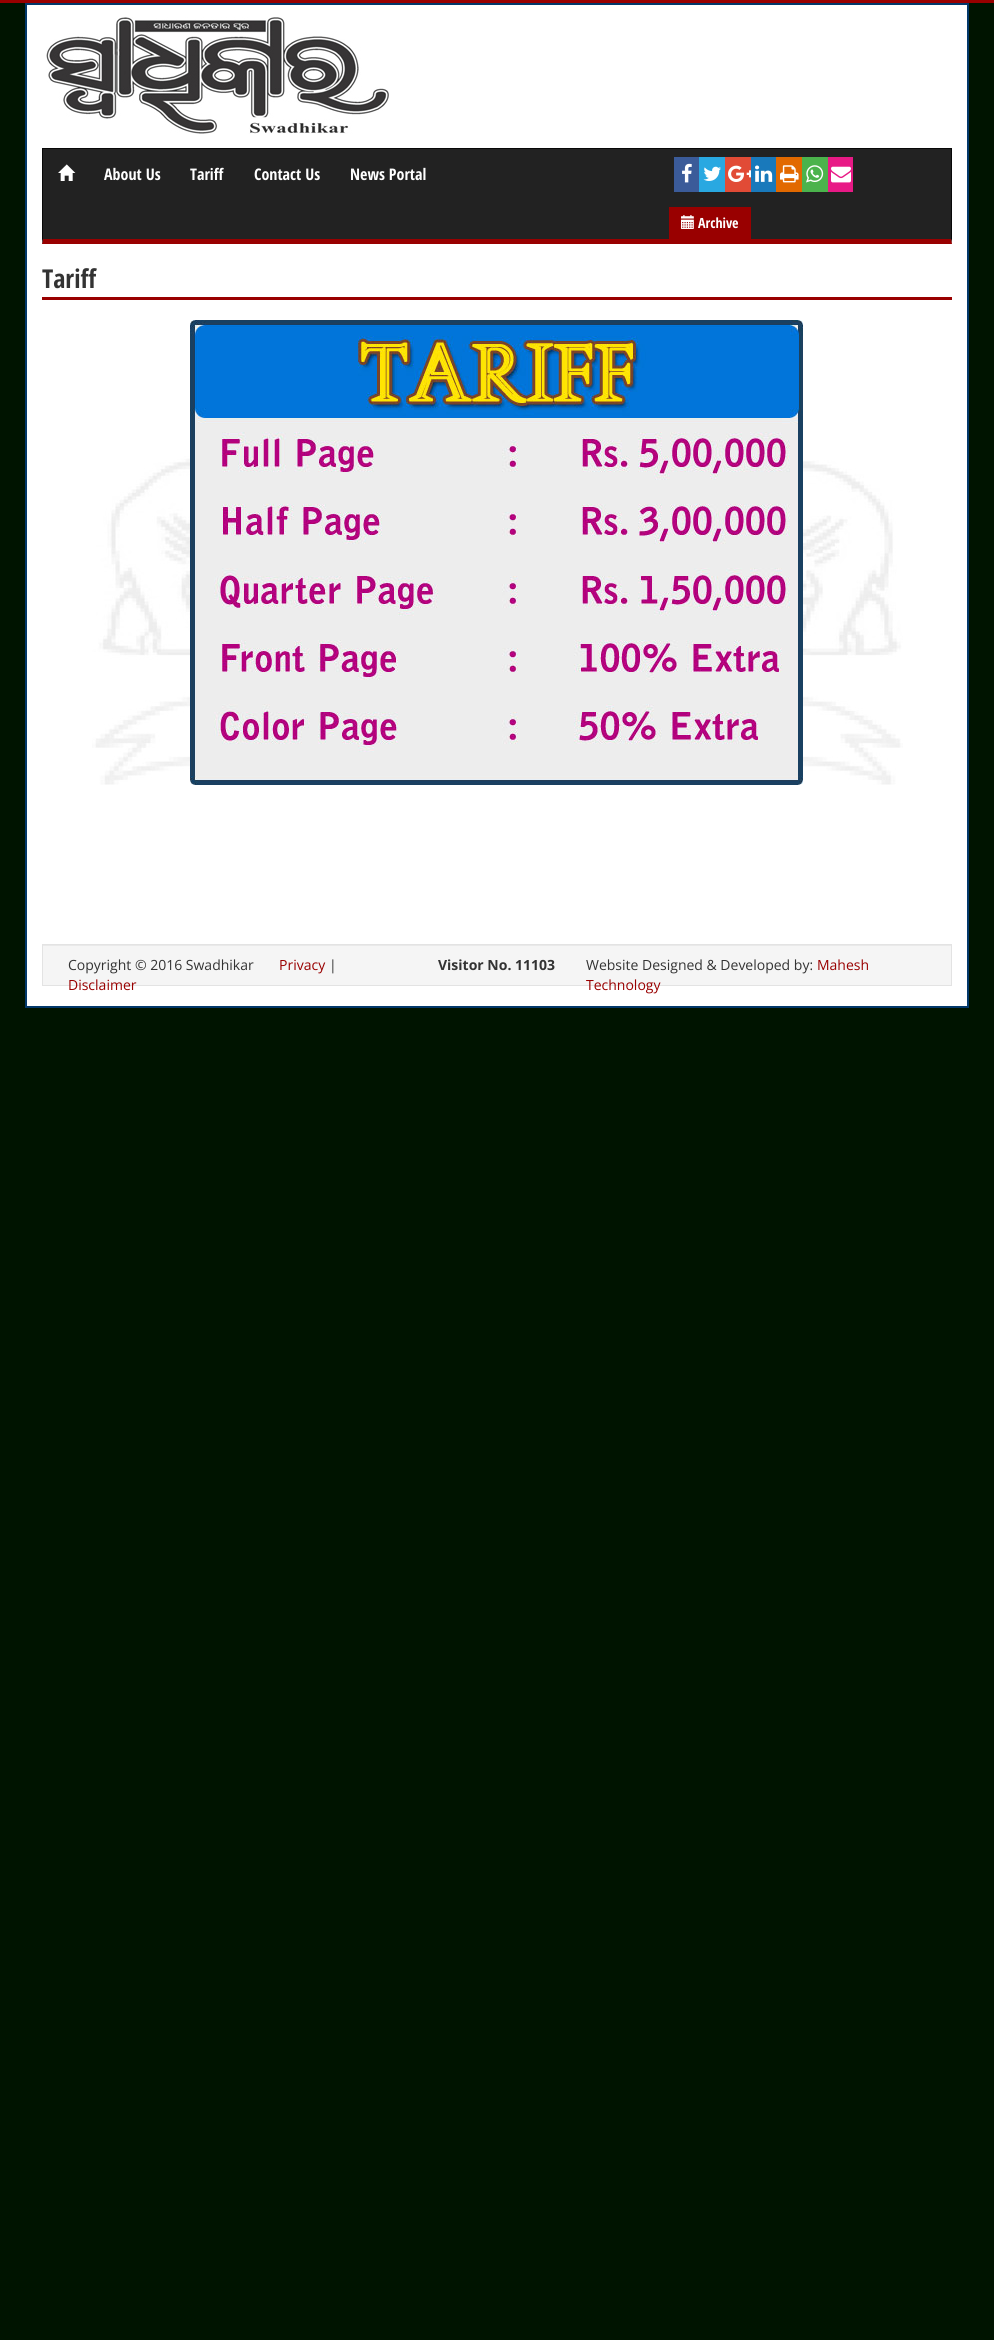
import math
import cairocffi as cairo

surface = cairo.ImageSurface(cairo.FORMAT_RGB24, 994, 2340)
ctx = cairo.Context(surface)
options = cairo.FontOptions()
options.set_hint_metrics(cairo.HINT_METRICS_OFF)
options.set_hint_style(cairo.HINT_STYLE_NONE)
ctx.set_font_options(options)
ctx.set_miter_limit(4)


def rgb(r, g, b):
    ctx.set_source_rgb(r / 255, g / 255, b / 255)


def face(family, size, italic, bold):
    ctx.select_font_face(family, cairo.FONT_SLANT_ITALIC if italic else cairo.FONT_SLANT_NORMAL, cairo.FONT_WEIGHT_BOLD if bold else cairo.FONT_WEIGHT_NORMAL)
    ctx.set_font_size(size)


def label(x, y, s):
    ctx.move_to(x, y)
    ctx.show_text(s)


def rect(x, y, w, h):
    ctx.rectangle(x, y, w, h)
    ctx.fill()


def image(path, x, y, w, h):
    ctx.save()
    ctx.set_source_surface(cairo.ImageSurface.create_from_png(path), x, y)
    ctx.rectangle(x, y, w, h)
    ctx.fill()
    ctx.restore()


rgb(0, 20, 0)
ctx.paint()
rgb(153, 0, 0)
rect(0, 0, 994, 3)
rgb(255, 255, 255)
ctx.rectangle(26, 4, 942, 1003)
ctx.fill_preserve()
rgb(2, 56, 106)
ctx.stroke()
image('image0.png', 46, 17, 343, 117)
rgb(34, 34, 34)
rect(43, 149, 908, 90)
rgb(8, 8, 8)
rect(42, 148, 910, 1)
ctx.new_path()
ctx.move_to(952, 148)
ctx.line_to(952, 244)
ctx.line_to(951, 239)
ctx.line_to(951, 149)
ctx.close_path()
ctx.fill()
rgb(153, 0, 0)
ctx.new_path()
ctx.move_to(952, 244)
ctx.line_to(42, 244)
ctx.line_to(43, 239)
ctx.line_to(951, 239)
ctx.close_path()
ctx.fill()
rgb(8, 8, 8)
ctx.new_path()
ctx.move_to(42, 244)
ctx.line_to(42, 148)
ctx.line_to(43, 149)
ctx.line_to(43, 239)
ctx.close_path()
ctx.fill()
image('image1.png', 58, 164, 18, 17)
face('Open Sans Condensed', 16, 0, 1)
rgb(255, 255, 255)
label(104, 180, 'About Us')
label(190, 180, 'Tariff')
label(254, 180, 'Contact Us')
label(350, 180, 'News Portal')
rgb(59, 91, 153)
rect(674, 157, 25, 35)
image('image2.png', 682, 163, 10, 20)
rgb(41, 168, 225)
rect(699, 157, 26, 35)
image('image3.png', 703, 166, 18, 15)
rgb(225, 75, 54)
rect(725, 157, 26, 35)
image('image4.png', 728, 165, 23, 17)
rgb(25, 121, 187)
rect(751, 157, 25, 35)
image('image5.png', 755, 165, 18, 17)
rgb(226, 105, 0)
rect(776, 157, 26, 35)
image('image6.png', 780, 165, 19, 18)
rgb(75, 179, 76)
rect(802, 157, 26, 35)
image('image7.png', 806, 165, 18, 18)
rgb(232, 26, 134)
rect(828, 157, 25, 35)
image('image8.png', 831, 166, 20, 17)
rgb(153, 0, 0)
rect(669, 207, 82, 32)
image('image9.png', 681, 215, 13, 14)
face('Open Sans Condensed', 14, 0, 1)
rgb(255, 255, 255)
label(698, 228, 'Archive')
rgb(153, 0, 0)
rect(42, 297, 910, 3)
face('Open Sans Condensed', 26, 0, 1)
rgb(51, 51, 51)
label(42, 288, 'Tariff')
image('image10.png', 92, 435, 811, 350)
image('image11.png', 190, 320, 613, 465)
rgb(245, 245, 245)
rect(43, 946, 908, 39)
rgb(233, 233, 233)
rect(43, 945, 908, 1)
ctx.rectangle(42.5, 944.5, 909, 41)
rgb(227, 227, 227)
ctx.set_line_width(1)
ctx.stroke()
face('Open Sans', 14, 0, 0)
rgb(51, 51, 51)
label(68, 970, 'Copyright © 2016 Swadhikar')
rgb(153, 0, 0)
label(279, 970, 'Privacy')
rgb(51, 51, 51)
label(329, 970, '|')
rgb(153, 0, 0)
label(68, 990, 'Disclaimer')
face('Open Sans', 14, 0, 1)
rgb(51, 51, 51)
label(438, 970, 'Visitor No. 11103')
face('Open Sans', 14, 0, 0)
label(586, 970, 'Website Designed & Developed by:')
rgb(153, 0, 0)
label(817, 970, 'Mahesh')
label(586, 990, 'Technology')
surface.write_to_png('render.png')
